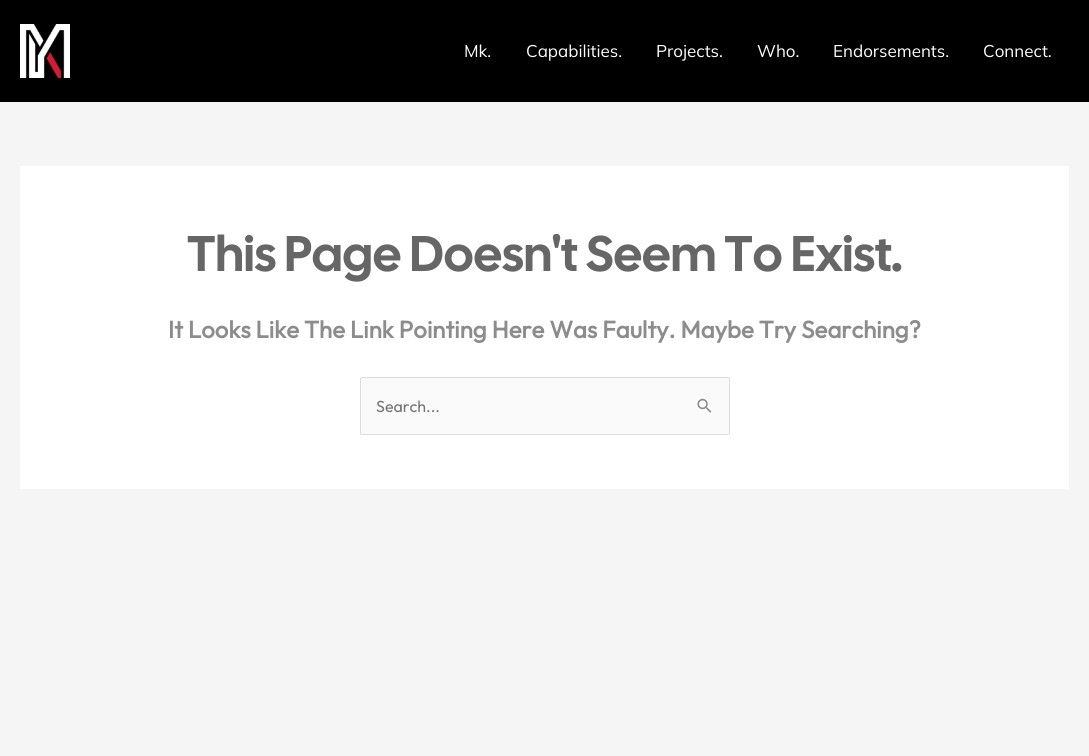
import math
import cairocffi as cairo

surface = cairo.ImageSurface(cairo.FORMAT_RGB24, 1089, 756)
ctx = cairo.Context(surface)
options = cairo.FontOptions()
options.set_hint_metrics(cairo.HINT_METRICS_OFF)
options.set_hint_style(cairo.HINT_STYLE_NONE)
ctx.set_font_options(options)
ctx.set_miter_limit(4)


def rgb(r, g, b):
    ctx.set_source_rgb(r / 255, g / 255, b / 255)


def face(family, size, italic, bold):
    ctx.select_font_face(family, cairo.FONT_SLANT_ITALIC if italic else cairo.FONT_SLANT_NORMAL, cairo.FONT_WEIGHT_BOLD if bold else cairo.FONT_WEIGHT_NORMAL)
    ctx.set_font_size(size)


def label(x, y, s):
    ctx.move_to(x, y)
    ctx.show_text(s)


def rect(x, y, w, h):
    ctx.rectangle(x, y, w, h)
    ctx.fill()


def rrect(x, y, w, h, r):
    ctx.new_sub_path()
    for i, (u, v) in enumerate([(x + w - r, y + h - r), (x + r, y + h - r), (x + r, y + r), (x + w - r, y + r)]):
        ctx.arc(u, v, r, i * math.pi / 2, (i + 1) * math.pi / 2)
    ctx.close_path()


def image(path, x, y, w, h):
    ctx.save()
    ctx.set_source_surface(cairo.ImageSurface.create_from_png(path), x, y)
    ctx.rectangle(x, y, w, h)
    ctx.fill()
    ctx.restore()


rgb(245, 245, 245)
ctx.paint()
rgb(0, 0, 0)
rect(0, 0, 1089, 102)
image('image0.png', 20, 24, 50, 54)
face('Mulish ExtraLight', 17, 0, 0)
rgb(255, 255, 255)
label(464, 57, 'Mk.')
label(526, 57, 'Capabilities.')
label(656, 57, 'Projects.')
label(757, 57, 'Who.')
label(833, 57, 'Endorsements.')
label(983, 57, 'Connect.')
rect(20, 166, 1049, 323)
face('Cal Sans', 50, 0, 0)
rgb(102, 102, 102)
label(187, 271, 'This Page Doesn\'t Seem To Exist.')
face('Outfit', 24, 0, 1)
rgb(140, 140, 140)
label(168, 338, 'It Looks Like The Link Pointing Here Was Faulty. Maybe Try Searching?')
rgb(250, 250, 250)
rrect(360.5, 377.5, 369, 57, 1.5)
ctx.fill_preserve()
rgb(221, 221, 221)
ctx.set_line_width(1)
ctx.stroke()
face('Outfit Thin', 16, 0, 0)
rgb(117, 117, 117)
label(376, 412, 'Search...')
image('image1.png', 697, 398, 15, 15)
surface.write_to_png('render.png')
